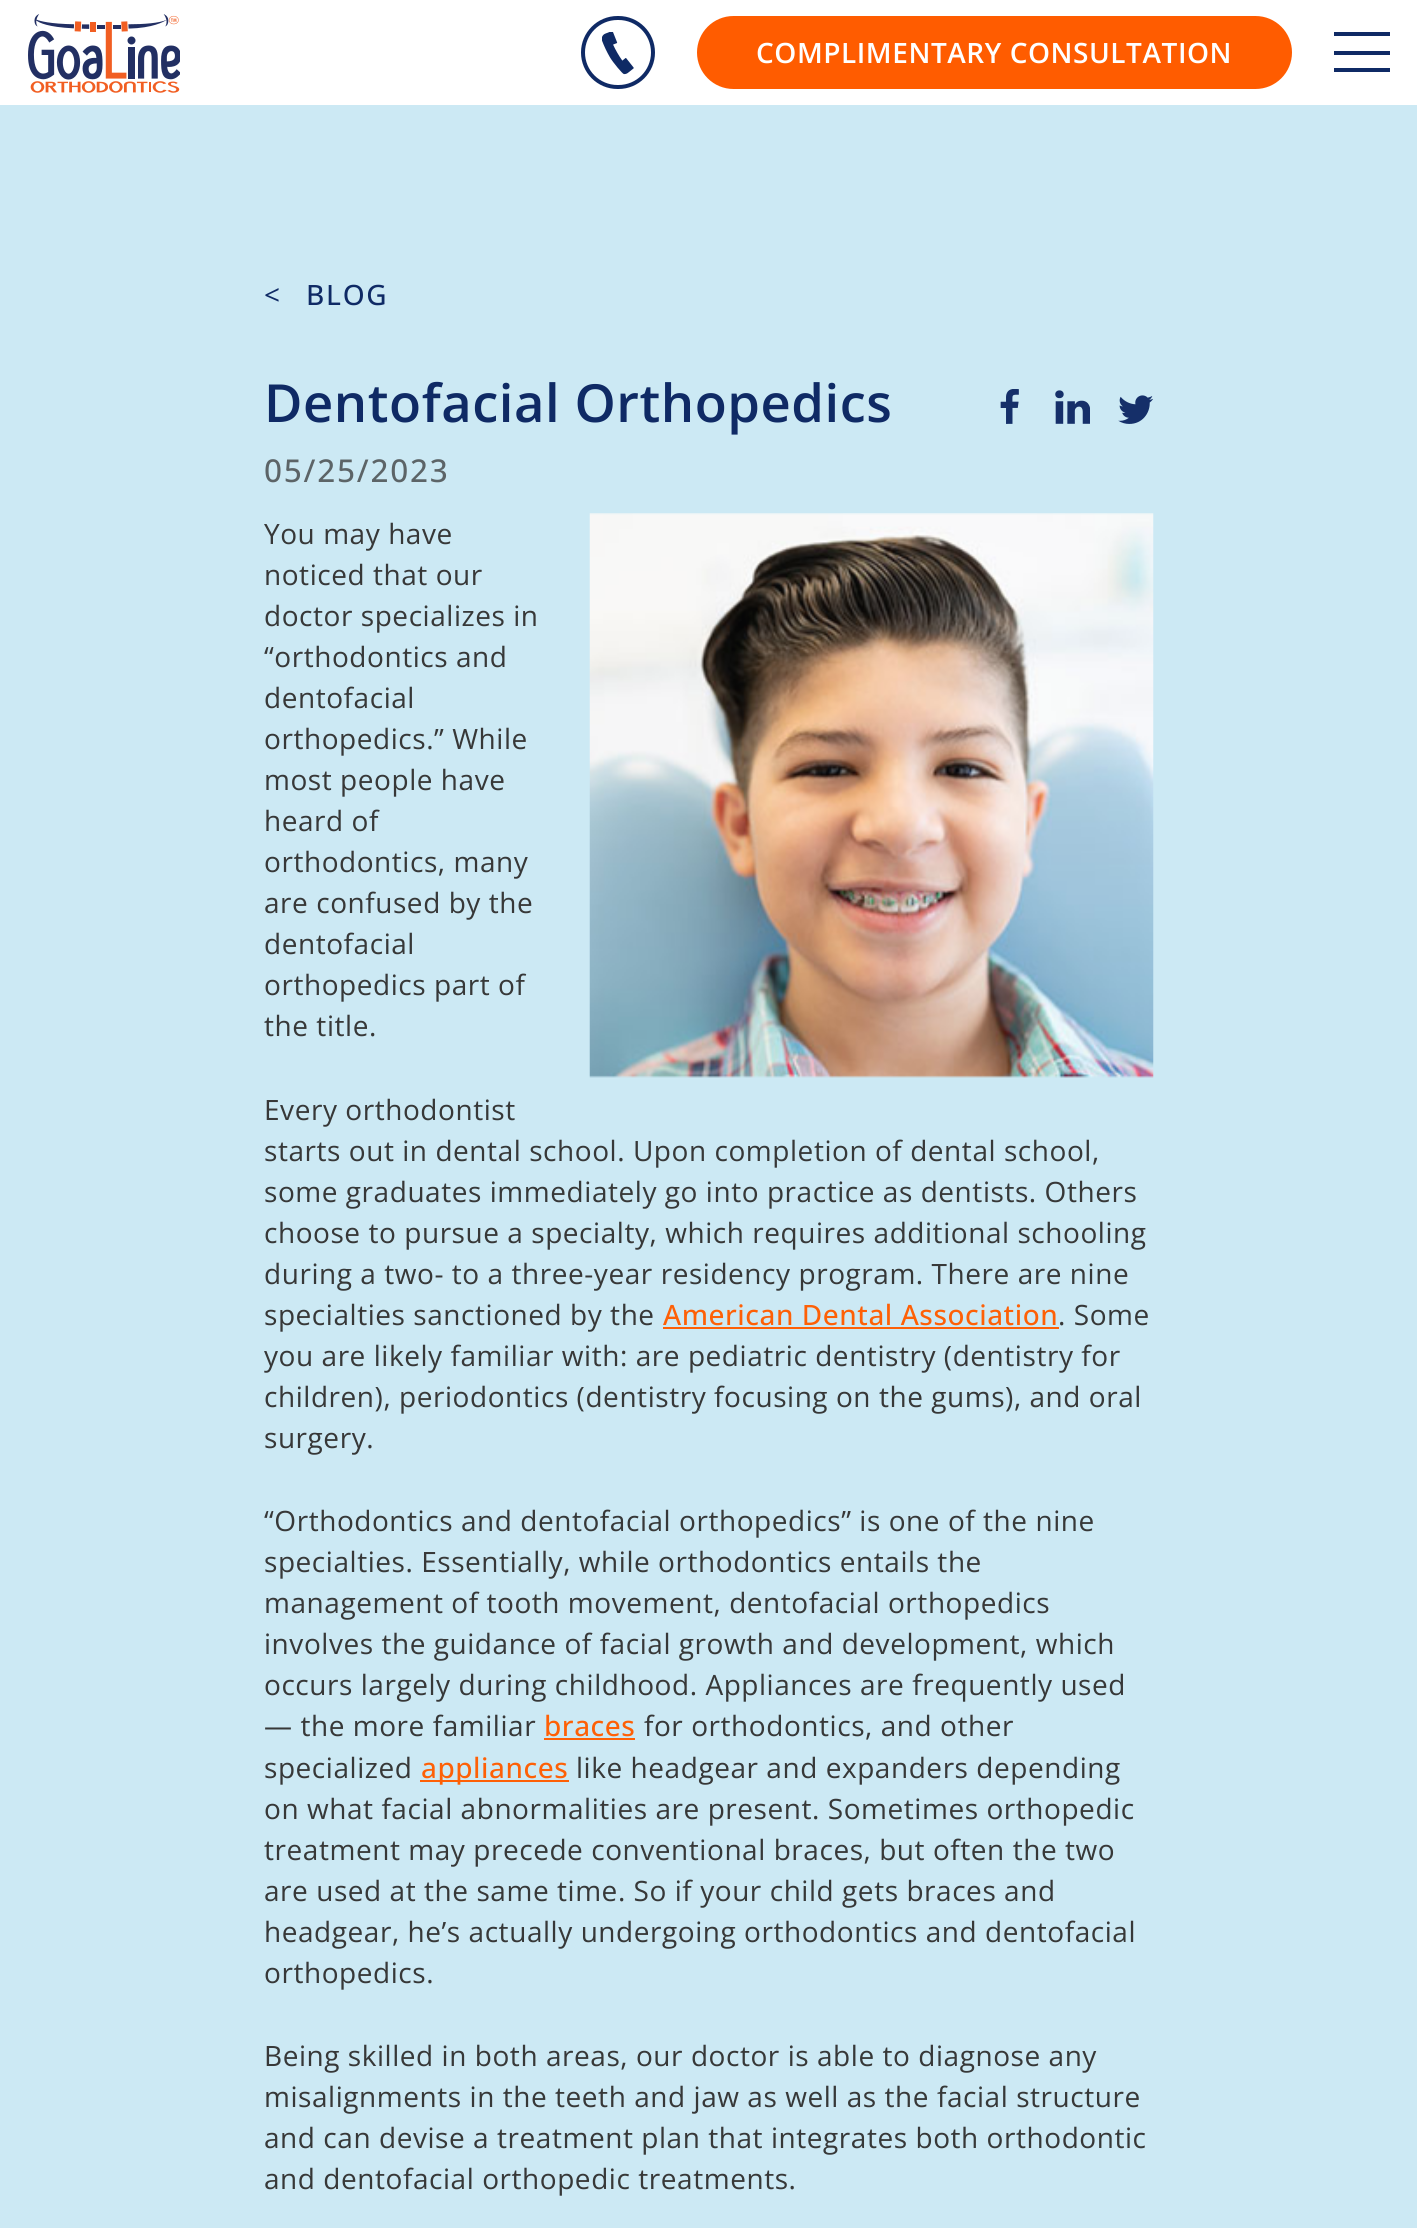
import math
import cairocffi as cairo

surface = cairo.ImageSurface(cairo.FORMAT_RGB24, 1417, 2228)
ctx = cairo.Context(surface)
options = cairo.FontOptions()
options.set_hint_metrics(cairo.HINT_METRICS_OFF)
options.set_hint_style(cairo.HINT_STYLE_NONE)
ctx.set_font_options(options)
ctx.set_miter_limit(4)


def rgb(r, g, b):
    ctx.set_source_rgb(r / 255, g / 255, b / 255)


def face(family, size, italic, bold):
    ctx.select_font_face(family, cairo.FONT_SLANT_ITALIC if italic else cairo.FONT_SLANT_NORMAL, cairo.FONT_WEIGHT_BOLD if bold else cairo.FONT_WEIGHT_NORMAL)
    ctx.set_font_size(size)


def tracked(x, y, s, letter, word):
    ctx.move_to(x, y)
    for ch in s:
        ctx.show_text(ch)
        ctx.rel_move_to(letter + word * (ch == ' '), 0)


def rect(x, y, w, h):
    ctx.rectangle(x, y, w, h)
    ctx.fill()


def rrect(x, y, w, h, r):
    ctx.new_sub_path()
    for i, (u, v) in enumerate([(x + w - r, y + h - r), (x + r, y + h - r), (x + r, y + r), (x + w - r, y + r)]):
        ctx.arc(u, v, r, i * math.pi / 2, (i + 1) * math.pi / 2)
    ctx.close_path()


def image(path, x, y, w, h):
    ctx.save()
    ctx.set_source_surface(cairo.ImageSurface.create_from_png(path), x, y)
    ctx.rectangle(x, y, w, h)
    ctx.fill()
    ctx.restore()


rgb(204, 233, 244)
ctx.paint()
rgb(255, 255, 255)
rect(0, 0, 1417, 105)
image('image0.png', 28, 14, 152, 79)
rrect(583, 18, 70, 69, 34.5)
rgb(15, 42, 101)
ctx.set_line_width(4)
ctx.stroke()
image('image1.png', 602, 32, 32, 43)
rgb(255, 92, 0)
rrect(699, 18, 591, 69, 34.5)
ctx.fill_preserve()
ctx.stroke()
face('Open Sans SemiBold', 28, 0, 0)
rgb(255, 255, 255)
tracked(756, 63, 'COMPLIMENTARY CONSULTATION', 0.55, 0)
rgb(15, 42, 101)
rect(1334, 32, 56, 4)
rect(1334, 51, 56, 4)
rect(1334, 68, 56, 4)
face('Open Sans', 28, 0, 0)
tracked(264, 305, '<', 0.55, 0)
face('Open Sans Medium', 28, 0, 0)
tracked(306, 305, 'BLOG', 1.75, 0)
face('Open Sans SemiBold', 52.5, 0, 0)
tracked(264, 422, 'Dentofacial Orthopedics', 0.55, 0)
face('Open Sans Medium', 31.5, 0, 0)
rgb(92, 100, 103)
tracked(264, 482, '05/25/2023', 1.75, 0)
image('image2.png', 1000, 389, 19, 35)
image('image3.png', 1055, 390, 35, 34)
image('image4.png', 1118, 395, 35, 29)
face('Open Sans', 28, 0, 0)
rgb(55, 56, 56)
tracked(264, 544, 'You may have', 0.55, 0)
tracked(264, 585, 'noticed that our', 0.55, 0)
tracked(264, 626, 'doctor specializes in', 0.55, 0)
tracked(264, 667, '“orthodontics and', 0.55, 0)
tracked(264, 708, 'dentofacial', 0.55, 0)
tracked(264, 749, 'orthopedics.” While', 0.55, 0)
tracked(264, 790, 'most people have', 0.55, 0)
tracked(264, 831, 'heard of', 0.55, 0)
tracked(264, 872, 'orthodontics, many', 0.55, 0)
tracked(264, 913, 'are confused by the', 0.55, 0)
tracked(264, 954, 'dentofacial', 0.55, 0)
tracked(264, 995, 'orthopedics part of', 0.55, 0)
tracked(264, 1036, 'the title.', 0.55, 0)
image('image5.png', 589, 513, 565, 565)
tracked(264, 1120, 'Every orthodontist', 0.55, 0)
tracked(264, 1161, 'starts out in dental school. Upon completion of dental school,', 0.55, 0)
tracked(264, 1202, 'some graduates immediately go into practice as dentists. Others', 0.55, 0)
tracked(264, 1243, 'choose to pursue a specialty, which requires additional schooling', 0.55, 0)
tracked(264, 1284, 'during a two- to a three-year residency program. There are nine', 0.55, 0)
tracked(264, 1325, 'specialties sanctioned by the', 0.55, 0)
face('Open Sans Medium', 28, 0, 0)
rgb(254, 96, 6)
tracked(663, 1325, 'American Dental Association', 0.55, 0)
rect(663, 1327, 396, 2)
face('Open Sans', 28, 0, 0)
rgb(55, 56, 56)
tracked(1058, 1325, '. Some', 0.55, 0)
tracked(264, 1366, 'you are likely familiar with: are pediatric dentistry (dentistry for', 0.55, 0)
tracked(264, 1407, 'children), periodontics (dentistry focusing on the gums), and oral', 0.55, 0)
tracked(264, 1448, 'surgery.', 0.55, 0)
tracked(264, 1531, '“Orthodontics and dentofacial orthopedics” is one of the nine', 0.55, 0)
tracked(264, 1572, 'specialties. Essentially, while orthodontics entails the', 0.55, 0)
tracked(264, 1613, 'management of tooth movement, dentofacial orthopedics', 0.55, 0)
tracked(264, 1654, 'involves the guidance of facial growth and development, which', 0.55, 0)
tracked(264, 1695, 'occurs largely during childhood. Appliances are frequently used', 0.55, 0)
tracked(264, 1736, '— the more familiar', 0.55, 0)
face('Open Sans Medium', 28, 0, 0)
rgb(254, 96, 6)
tracked(544, 1736, 'braces', 0.55, 0)
rect(544, 1738, 91, 2)
face('Open Sans', 28, 0, 0)
rgb(55, 56, 56)
tracked(644, 1736, 'for orthodontics, and other', 0.55, 0)
tracked(264, 1778, 'specialized', 0.55, 0)
rgb(254, 96, 6)
rect(420, 1780, 149, 2)
face('Open Sans Medium', 28, 0, 0)
tracked(421, 1778, 'appliances', 0.55, 0)
face('Open Sans', 28, 0, 0)
rgb(55, 56, 56)
tracked(576, 1778, 'like headgear and expanders depending', 0.55, 0)
tracked(264, 1819, 'on what facial abnormalities are present. Sometimes orthopedic', 0.55, 0)
tracked(264, 1860, 'treatment may precede conventional braces, but often the two', 0.55, 0)
tracked(264, 1901, 'are used at the same time. So if your child gets braces and', 0.55, 0)
tracked(264, 1942, 'headgear, he’s actually undergoing orthodontics and dentofacial', 0.55, 0)
tracked(264, 1983, 'orthopedics.', 0.55, 0)
tracked(264, 2066, 'Being skilled in both areas, our doctor is able to diagnose any', 0.55, 0)
tracked(264, 2107, 'misalignments in the teeth and jaw as well as the facial structure', 0.55, 0)
tracked(264, 2148, 'and can devise a treatment plan that integrates both orthodontic', 0.55, 0)
tracked(264, 2189, 'and dentofacial orthopedic treatments.', 0.55, 0)
surface.write_to_png('render.png')
